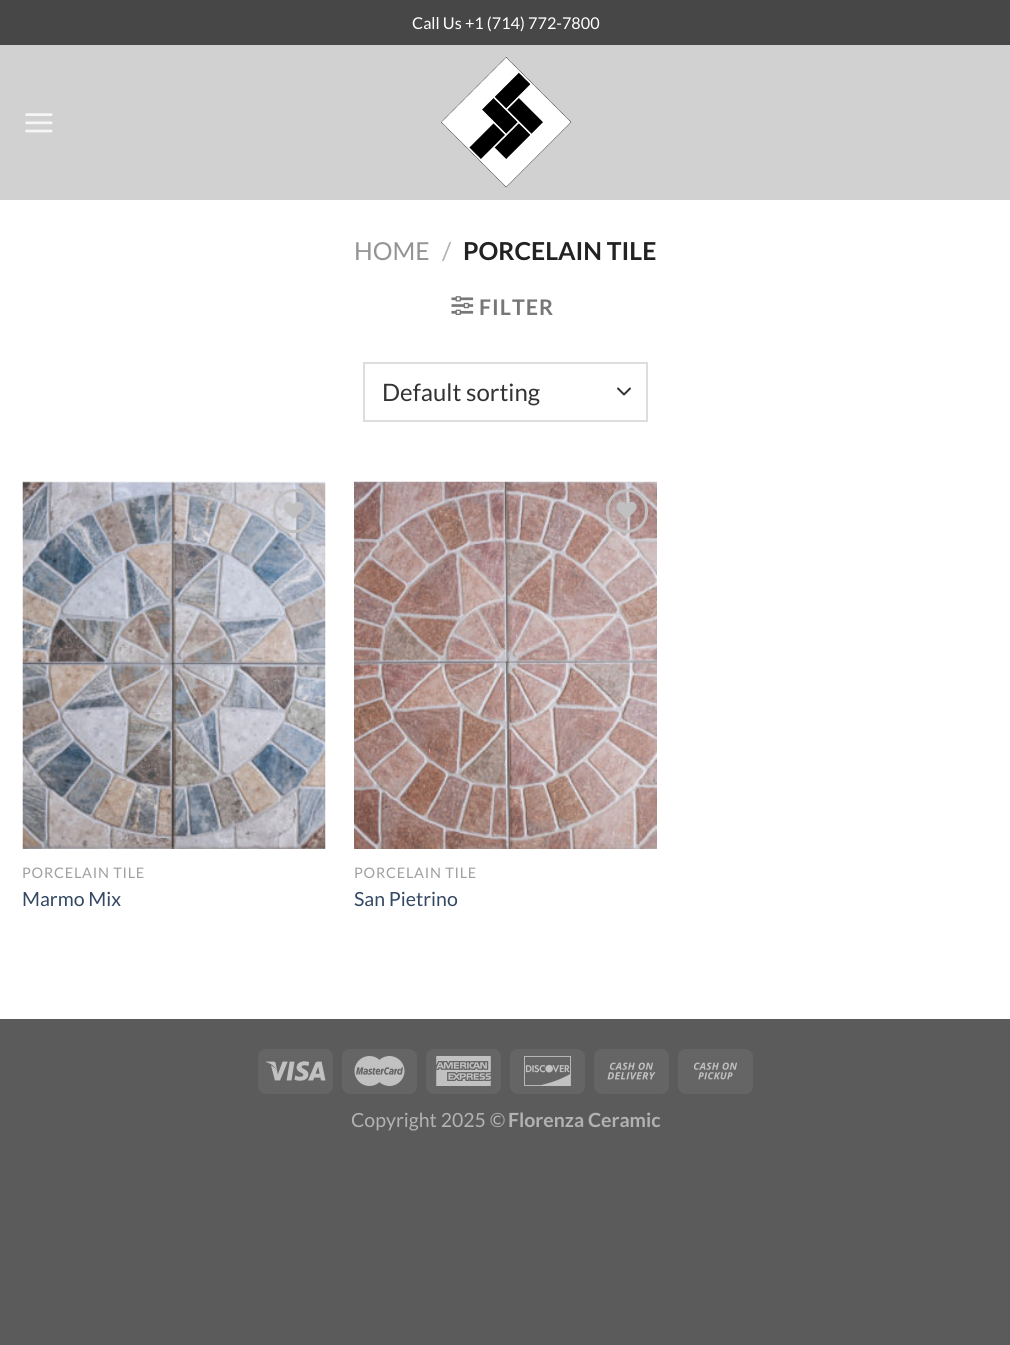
import math
import cairocffi as cairo

surface = cairo.ImageSurface(cairo.FORMAT_RGB24, 1010, 1345)
ctx = cairo.Context(surface)
options = cairo.FontOptions()
options.set_hint_metrics(cairo.HINT_METRICS_OFF)
options.set_hint_style(cairo.HINT_STYLE_NONE)
ctx.set_font_options(options)
ctx.set_miter_limit(4)


def rgb(r, g, b):
    ctx.set_source_rgb(r / 255, g / 255, b / 255)


def face(family, size, italic, bold):
    ctx.select_font_face(family, cairo.FONT_SLANT_ITALIC if italic else cairo.FONT_SLANT_NORMAL, cairo.FONT_WEIGHT_BOLD if bold else cairo.FONT_WEIGHT_NORMAL)
    ctx.set_font_size(size)


def label(x, y, s):
    ctx.move_to(x, y)
    ctx.show_text(s)


def tracked(x, y, s, letter, word):
    ctx.move_to(x, y)
    for ch in s:
        ctx.show_text(ch)
        ctx.rel_move_to(letter + word * (ch == ' '), 0)


def rect(x, y, w, h):
    ctx.rectangle(x, y, w, h)
    ctx.fill()


def rrect(x, y, w, h, r):
    ctx.new_sub_path()
    for i, (u, v) in enumerate([(x + w - r, y + h - r), (x + r, y + h - r), (x + r, y + r), (x + w - r, y + r)]):
        ctx.arc(u, v, r, i * math.pi / 2, (i + 1) * math.pi / 2)
    ctx.close_path()


def image(path, x, y, w, h):
    ctx.save()
    ctx.set_source_surface(cairo.ImageSurface.create_from_png(path), x, y)
    ctx.rectangle(x, y, w, h)
    ctx.fill()
    ctx.restore()


rgb(91, 91, 91)
ctx.paint()
rgb(255, 255, 255)
rect(0, 200, 1010, 819)
rgb(71, 71, 71)
rect(0, 0, 1010, 45)
face('Lato', 16.25, 0, 0)
rgb(255, 255, 255)
label(412, 29, 'Call Us +1 (714) 772-7800')
rgb(209, 209, 209)
rect(0, 45, 1010, 155)
image('image0.png', 25, 113, 28, 20)
image('image1.png', 441, 57, 131, 131)
face('Lato', 24.75, 0, 0)
rgb(148, 148, 148)
label(354, 260, 'HOME')
rgb(178, 178, 178)
label(442, 260, '/')
face('Lato', 24.75, 0, 1)
rgb(34, 34, 34)
label(463, 260, 'PORCELAIN TILE')
image('image2.png', 451, 296, 23, 19)
face('Lato', 21.5, 0, 1)
rgb(119, 119, 119)
tracked(479, 315, 'FILTER', 1, 0)
ctx.new_path()
ctx.move_to(618, 388.5)
ctx.line_to(624, 394.5)
ctx.line_to(630, 388.5)
rgb(51, 51, 51)
ctx.set_line_cap(cairo.LINE_CAP_ROUND)
ctx.set_line_join(cairo.LINE_JOIN_ROUND)
ctx.stroke()
ctx.rectangle(364, 363, 283, 58)
rgb(221, 221, 221)
ctx.set_line_cap(cairo.LINE_CAP_BUTT)
ctx.set_line_join(cairo.LINE_JOIN_MITER)
ctx.stroke()
face('Lato', 24, 0, 0)
rgb(51, 51, 51)
label(382, 401, 'Default sorting')
image('image3.png', 22, 481, 304, 368)
rrect(274.5, 490.5, 39, 41, 19.5)
rgb(192, 192, 192)
ctx.set_line_width(3)
ctx.stroke()
image('image4.png', 283, 501, 21, 18)
face('Lato', 14.5, 0, 0)
rgb(160, 160, 160)
tracked(22, 878, 'PORCELAIN TILE', 0.75, 0)
face('Lato', 19.5, 0, 0)
rgb(51, 72, 98)
label(22, 906, 'Marmo Mix')
image('image5.png', 354, 481, 303, 368)
rrect(607.5, 490.5, 39, 41, 19.5)
rgb(192, 192, 192)
ctx.stroke()
image('image6.png', 616, 501, 21, 18)
face('Lato', 14.5, 0, 0)
rgb(160, 160, 160)
tracked(354, 878, 'PORCELAIN TILE', 0.75, 0)
face('Lato', 19.5, 0, 0)
rgb(51, 72, 98)
label(354, 906, 'San Pietrino')
rgb(101, 101, 101)
rrect(258, 1049, 75, 45, 8)
ctx.fill()
image('image7.png', 266, 1061, 60, 20)
rrect(342, 1049, 75, 45, 8)
ctx.fill()
image('image8.png', 354, 1056, 51, 30)
rrect(426, 1049, 75, 45, 8)
ctx.fill()
image('image9.png', 436, 1056, 55, 30)
rrect(510, 1049, 75, 45, 8)
ctx.fill()
image('image10.png', 524, 1056, 47, 30)
rrect(594, 1049, 75, 45, 8)
ctx.fill()
image('image11.png', 607, 1062, 49, 18)
rrect(678, 1049, 75, 45, 8)
ctx.fill()
image('image12.png', 693, 1062, 44, 18)
rgb(178, 178, 178)
label(351, 1127, 'Copyright 2025 ©')
face('Lato', 19.5, 0, 1)
label(508, 1127, 'Florenza Ceramic')
surface.write_to_png('render.png')
